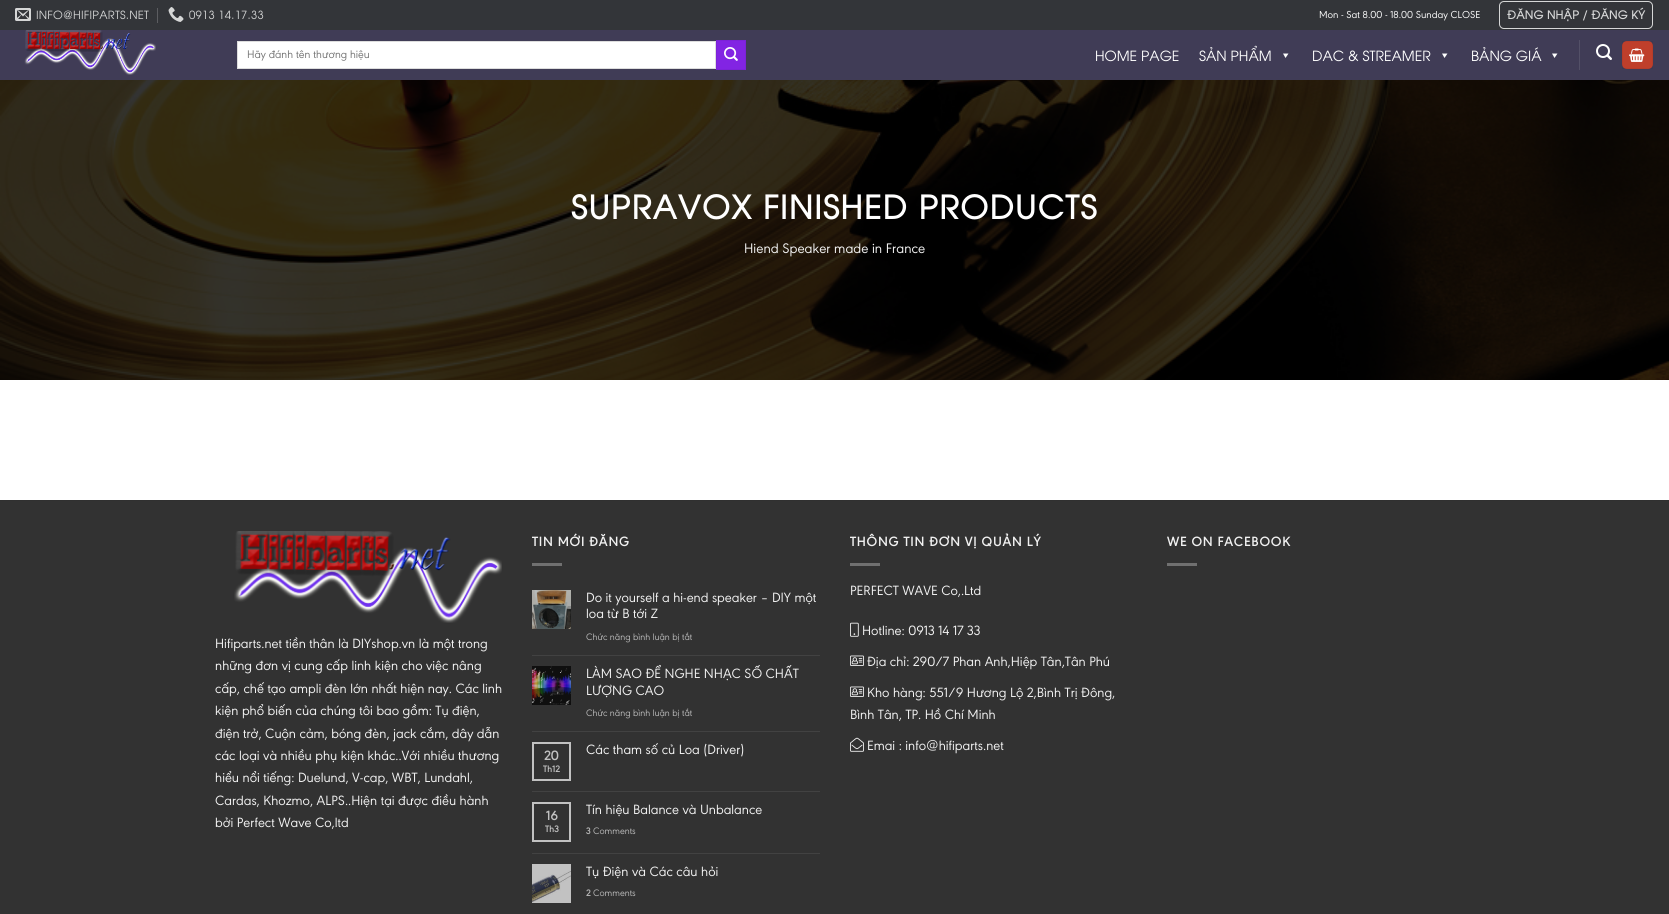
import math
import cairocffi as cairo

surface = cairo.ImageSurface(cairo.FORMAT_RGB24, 1669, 914)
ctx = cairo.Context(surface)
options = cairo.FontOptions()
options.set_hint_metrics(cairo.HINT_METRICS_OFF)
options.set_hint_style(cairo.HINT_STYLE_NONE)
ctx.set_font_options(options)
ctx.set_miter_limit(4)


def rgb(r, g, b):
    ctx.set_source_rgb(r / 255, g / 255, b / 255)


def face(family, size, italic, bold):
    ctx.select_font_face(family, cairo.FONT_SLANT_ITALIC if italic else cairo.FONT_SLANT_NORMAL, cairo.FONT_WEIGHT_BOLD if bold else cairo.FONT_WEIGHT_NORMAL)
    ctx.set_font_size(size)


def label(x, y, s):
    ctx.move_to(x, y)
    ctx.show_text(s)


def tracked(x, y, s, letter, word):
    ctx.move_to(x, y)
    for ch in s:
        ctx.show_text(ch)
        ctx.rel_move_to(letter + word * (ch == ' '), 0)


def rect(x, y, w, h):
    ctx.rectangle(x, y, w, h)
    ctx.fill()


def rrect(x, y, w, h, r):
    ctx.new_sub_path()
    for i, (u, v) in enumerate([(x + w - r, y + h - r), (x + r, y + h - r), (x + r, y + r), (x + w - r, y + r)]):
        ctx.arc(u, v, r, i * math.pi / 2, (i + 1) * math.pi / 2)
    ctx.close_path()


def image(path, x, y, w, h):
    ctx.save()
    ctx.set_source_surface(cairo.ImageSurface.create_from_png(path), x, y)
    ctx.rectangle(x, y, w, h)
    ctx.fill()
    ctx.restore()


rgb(255, 255, 255)
ctx.paint()
rgb(51, 53, 57)
rect(0, 0, 1669, 30)
image('image0.png', 15, 8, 16, 13)
face('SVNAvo', 11.25, 0, 0)
rgb(214, 215, 215)
tracked(36, 19, 'INFO@HIFIPARTS.NET', 0.25, 0)
rgb(92, 93, 97)
rect(157, 8, 1, 15)
image('image1.png', 168, 7, 16, 15)
rgb(214, 215, 215)
tracked(189, 19, '0913 14.17.33', 0.25, 0)
face('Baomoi', 10.5, 0, 0)
rgb(255, 255, 255)
label(1319, 18, 'Mon - Sat 8.00 - 18.00 Sunday CLOSE')
rrect(1499.5, 1.5, 153, 27, 4.5)
rgb(214, 215, 215)
ctx.set_line_width(1)
ctx.stroke()
face('SVNAvo', 11.25, 0, 1)
tracked(1507, 19, 'ĐĂNG NHẬP / ĐĂNG KÝ', 0.3, 0)
rgb(64, 60, 86)
rect(0, 30, 1669, 50)
image('image2.png', 24, 30, 132, 45)
rgb(255, 255, 255)
ctx.rectangle(237.5, 41.5, 478, 27)
ctx.fill_preserve()
rgb(221, 221, 221)
ctx.stroke()
face('Baomoi', 11.5, 0, 0)
rgb(117, 117, 117)
label(247, 58, 'Hãy đánh tên thương hiệu')
rgb(130, 36, 227)
ctx.rectangle(716.5, 40.5, 29, 29)
ctx.fill_preserve()
rgb(124, 34, 216)
ctx.stroke()
image('image3.png', 724, 47, 14, 14)
face('SVNAvo', 14, 0, 0)
rgb(255, 255, 255)
label(1095, 61, 'HOME PAGE')
label(1199, 61, 'SẢN PHẨM')
ctx.new_path()
ctx.move_to(1288.5, 53.5)
ctx.line_to(1285.5, 58)
ctx.line_to(1283, 53.5)
ctx.close_path()
ctx.fill()
label(1312, 61, 'DAC & STREAMER')
ctx.new_path()
ctx.move_to(1447.5, 53.5)
ctx.line_to(1444.5, 58)
ctx.line_to(1442, 53.5)
ctx.close_path()
ctx.fill()
label(1471, 61, 'BẢNG GIÁ')
ctx.new_path()
ctx.move_to(1557.5, 53.5)
ctx.line_to(1554.5, 58)
ctx.line_to(1552, 53.5)
ctx.close_path()
ctx.fill()
rgb(83, 80, 103)
rect(1579, 40, 1, 30)
image('image4.png', 1596, 44, 16, 16)
rgb(191, 63, 43)
rrect(1622, 41, 31, 28, 5)
ctx.fill()
ctx.rectangle(1622.5, 41.5, 30, 27)
ctx.set_source_rgba(0, 0, 0, 0.05)
ctx.stroke()
image('image5.png', 1629, 48, 16, 14)
image('image6.png', 0, 80, 1669, 300)
face('SVNAvo', 32, 0, 1)
rgb(255, 255, 255)
tracked(571, 219, 'SUPRAVOX FINISHED PRODUCTS', 1.6, 0)
face('Baomoi', 14.4, 0, 0)
rgb(241, 241, 241)
label(744, 253, 'Hiend Speaker made in France')
rgb(50, 50, 50)
rect(0, 501, 1669, 413)
rgb(48, 48, 48)
rect(0, 500, 1669, 1)
face('Baomoi SemiBold', 14, 0, 0)
rgb(241, 241, 241)
tracked(532, 546, 'TIN MỚI ĐĂNG', 0.7, 0)
rgb(112, 112, 112)
rect(532, 563, 30, 3)
image('image7.png', 532, 590, 39, 39)
face('Baomoi', 14, 0, 0)
rgb(241, 241, 241)
label(586, 602, 'Do it yourself a hi-end speaker – DIY một')
label(586, 618, 'loa từ B tới Z')
face('Baomoi', 9.75, 0, 0)
rgb(184, 184, 184)
label(586, 640, 'Chức năng bình luận bị tắt')
rgb(66, 66, 66)
rect(532, 655, 288, 1)
image('image8.png', 532, 666, 39, 39)
face('Baomoi', 14, 0, 0)
rgb(241, 241, 241)
label(586, 678, 'LÀM SAO ĐỂ NGHE NHẠC SỐ CHẤT')
label(586, 695, 'LƯỢNG CAO')
face('Baomoi', 9.75, 0, 0)
rgb(184, 184, 184)
label(586, 716, 'Chức năng bình luận bị tắt')
rgb(66, 66, 66)
rect(532, 731, 288, 1)
ctx.rectangle(533, 743, 37, 37)
rgb(194, 194, 194)
ctx.set_line_width(2)
ctx.stroke()
face('Baomoi SemiBold', 14, 0, 0)
label(544, 760, '20')
face('Baomoi SemiBold', 9.75, 0, 0)
label(543, 772, 'Th12')
face('Baomoi', 14, 0, 0)
rgb(241, 241, 241)
label(586, 754, 'Các tham số củ Loa (Driver)')
rgb(66, 66, 66)
rect(532, 791, 288, 1)
ctx.rectangle(533, 803, 37, 38)
rgb(194, 194, 194)
ctx.stroke()
face('Baomoi SemiBold', 14, 0, 0)
label(546, 820, '16')
face('Baomoi SemiBold', 9.75, 0, 0)
label(545, 832, 'Th3')
face('Baomoi', 14, 0, 0)
rgb(241, 241, 241)
label(586, 814, 'Tín hiệu Balance và Unbalance')
face('Baomoi SemiBold', 9.75, 0, 0)
rgb(184, 184, 184)
label(586, 834, '3')
face('Baomoi', 9.75, 0, 0)
label(593, 834, 'Comments')
rgb(66, 66, 66)
rect(532, 853, 288, 1)
image('image9.png', 532, 864, 39, 39)
face('Baomoi', 14, 0, 0)
rgb(241, 241, 241)
label(586, 876, 'Tụ Điện và Các câu hỏi')
face('Baomoi SemiBold', 9.75, 0, 0)
rgb(184, 184, 184)
label(586, 896, '2')
face('Baomoi', 9.75, 0, 0)
label(593, 896, 'Comments')
face('Baomoi SemiBold', 14, 0, 0)
rgb(241, 241, 241)
tracked(850, 546, 'THÔNG TIN ĐƠN VỊ QUẢN LÝ', 0.7, 0)
rgb(112, 112, 112)
rect(850, 563, 30, 3)
face('Baomoi', 14, 0, 0)
rgb(241, 241, 241)
label(850, 595, 'PERFECT WAVE Co,.Ltd')
image('image10.png', 850, 622, 9, 15)
label(862, 635, 'Hotline: 0913 14 17 33')
image('image11.png', 850, 655, 14, 11)
label(867, 666, 'Địa chỉ: 290/7 Phan Anh,Hiệp Tân,Tân Phú')
image('image11.png', 850, 686, 14, 11)
label(867, 697, 'Kho hàng: 551/9 Hương Lộ 2,Bình Trị Đông,')
label(850, 719, 'Bình Tân, TP. Hồ Chí Minh')
image('image12.png', 850, 737, 14, 15)
label(867, 750, 'Emai : info@hifiparts.net')
face('Baomoi SemiBold', 14, 0, 0)
tracked(1167, 546, 'WE ON FACEBOOK', 0.7, 0)
rgb(112, 112, 112)
rect(1167, 563, 30, 3)
image('image13.png', 234, 531, 268, 92)
face('Baomoi', 14, 0, 0)
rgb(241, 241, 241)
label(215, 648, 'Hifiparts.net tiền thân là DIYshop.vn là một trong')
label(215, 670, 'những đơn vị cung cấp linh kiện cho việc nâng')
label(215, 693, 'cấp, chế tạo ampli đèn lớn nhất hiện nay. Các linh')
label(215, 715, 'kiện phổ biến của chúng tôi bao gồm: Tụ điện,')
label(215, 738, 'điện trở, Cuộn cảm, bóng đèn, jack cắm, dây dẫn')
label(215, 760, 'các loại và nhiều phụ kiện khác..Với nhiều thương')
label(215, 782, 'hiểu nổi tiếng: Duelund, V-cap, WBT, Lundahl,')
label(215, 805, 'Cardas, Khozmo, ALPS..Hiện tại được điều hành')
label(215, 827, 'bởi Perfect Wave Co,ltd')
surface.write_to_png('render.png')
